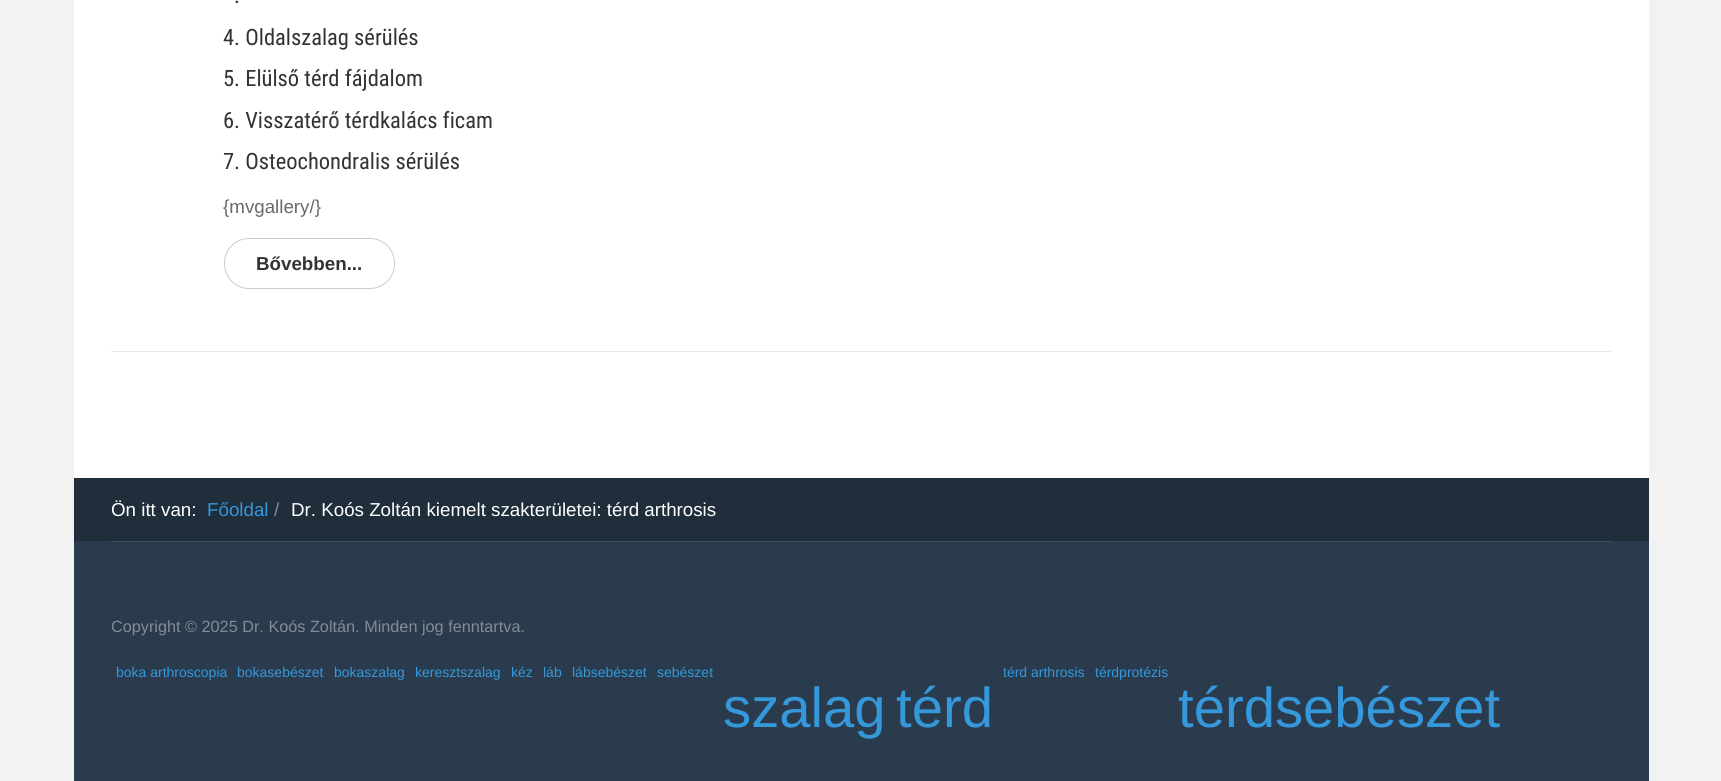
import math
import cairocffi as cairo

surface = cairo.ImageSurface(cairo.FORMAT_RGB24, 1721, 781)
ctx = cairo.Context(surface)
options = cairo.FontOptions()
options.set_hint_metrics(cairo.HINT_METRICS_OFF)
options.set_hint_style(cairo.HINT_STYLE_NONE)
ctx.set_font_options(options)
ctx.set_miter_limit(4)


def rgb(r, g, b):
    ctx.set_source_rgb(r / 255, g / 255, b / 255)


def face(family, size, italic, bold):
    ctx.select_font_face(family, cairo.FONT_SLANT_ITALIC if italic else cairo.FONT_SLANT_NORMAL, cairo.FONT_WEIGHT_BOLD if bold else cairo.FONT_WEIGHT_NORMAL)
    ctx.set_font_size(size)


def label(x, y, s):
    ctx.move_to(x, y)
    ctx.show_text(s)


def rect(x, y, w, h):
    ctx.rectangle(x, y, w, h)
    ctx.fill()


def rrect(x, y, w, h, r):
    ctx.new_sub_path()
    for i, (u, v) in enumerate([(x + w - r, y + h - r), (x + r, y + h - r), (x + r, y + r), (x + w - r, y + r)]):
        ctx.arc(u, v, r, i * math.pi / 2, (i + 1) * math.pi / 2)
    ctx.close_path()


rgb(242, 242, 242)
ctx.paint()
rgb(255, 255, 255)
rect(74, 0, 1575, 478)
rgb(231, 231, 231)
rect(111, 351, 1500, 1)
face('Roboto Condensed', 22.5, 0, 0)
rgb(51, 51, 51)
label(234, 3, '.')
label(223, 45, '4. Oldalszalag sérülés')
label(223, 86, '5. Elülső térd fájdalom')
label(223, 128, '6. Visszatérő térdkalács ficam')
label(223, 169, '7. Osteochondralis sérülés')
face('Liberation Sans', 18.75, 0, 0)
rgb(105, 105, 105)
label(223, 213, '{mvgallery/}')
rrect(224.5, 238.5, 170, 50, 24.5)
rgb(204, 204, 204)
ctx.set_line_width(1)
ctx.stroke()
face('Liberation Sans', 18.75, 0, 1)
rgb(51, 51, 51)
label(256, 270, 'Bővebben...')
rgb(32, 45, 59)
rect(74, 478, 1575, 63)
face('Liberation Sans', 18.75, 0, 0)
rgb(255, 255, 255)
label(111, 516, 'Ön itt van:')
rgb(52, 152, 219)
label(207, 516, 'Főoldal')
rgb(131, 139, 149)
label(274, 516, '/')
rgb(255, 255, 255)
label(291, 516, 'Dr. Koós Zoltán kiemelt szakterületei: térd arthrosis')
rgb(42, 59, 77)
rect(74, 541, 1575, 240)
rgb(64, 79, 95)
rect(111, 541, 1500, 1)
face('Liberation Sans', 16.25, 0, 0)
rgb(131, 139, 149)
label(111, 632, 'Copyright © 2025 Dr. Koós Zoltán. Minden jog fenntartva.')
face('Liberation Sans', 14, 0, 0)
rgb(52, 152, 219)
label(116, 677, 'boka arthroscopia')
label(237, 677, 'bokasebészet')
label(334, 677, 'bokaszalag')
label(415, 677, 'keresztszalag')
label(511, 677, 'kéz')
label(543, 677, 'láb')
label(572, 677, 'lábsebészet')
label(657, 677, 'sebészet')
label(1003, 677, 'térd arthrosis')
label(1095, 677, 'térdprotézis')
face('Liberation Sans', 56.25, 0, 0)
label(723, 727, 'szalag')
label(896, 727, 'térd')
label(1178, 727, 'térdsebészet')
surface.write_to_png('render.png')
